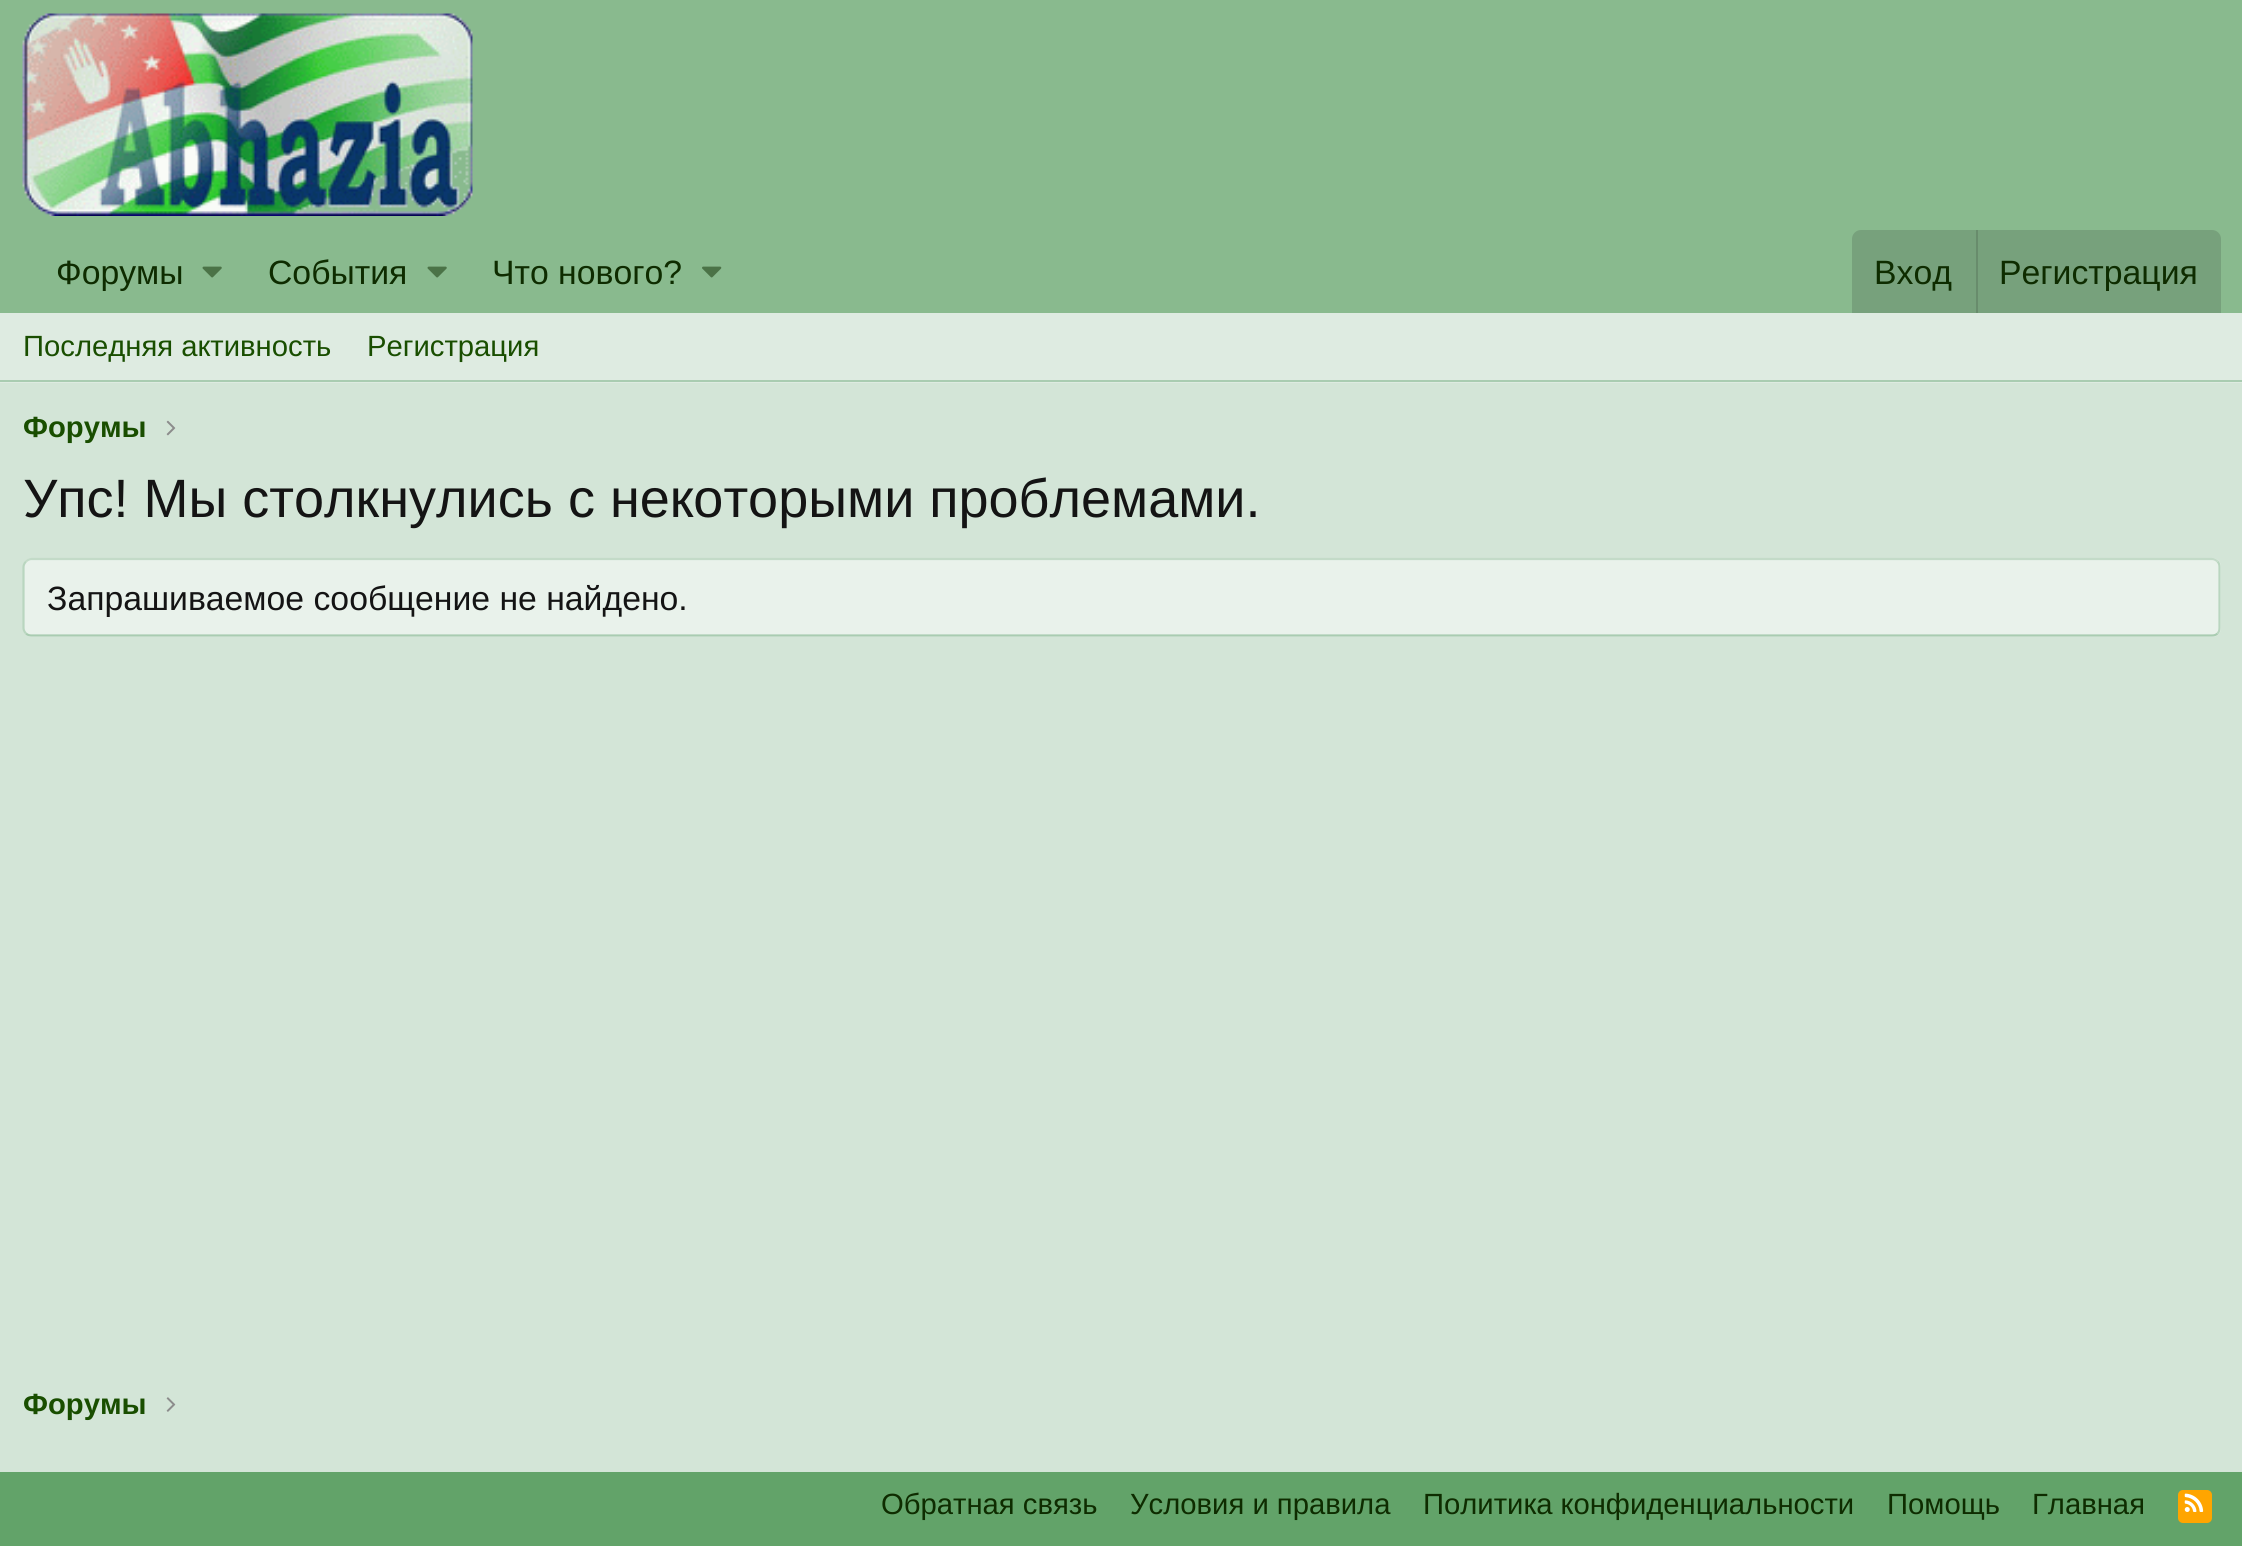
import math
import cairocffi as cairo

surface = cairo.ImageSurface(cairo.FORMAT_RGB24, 2242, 1546)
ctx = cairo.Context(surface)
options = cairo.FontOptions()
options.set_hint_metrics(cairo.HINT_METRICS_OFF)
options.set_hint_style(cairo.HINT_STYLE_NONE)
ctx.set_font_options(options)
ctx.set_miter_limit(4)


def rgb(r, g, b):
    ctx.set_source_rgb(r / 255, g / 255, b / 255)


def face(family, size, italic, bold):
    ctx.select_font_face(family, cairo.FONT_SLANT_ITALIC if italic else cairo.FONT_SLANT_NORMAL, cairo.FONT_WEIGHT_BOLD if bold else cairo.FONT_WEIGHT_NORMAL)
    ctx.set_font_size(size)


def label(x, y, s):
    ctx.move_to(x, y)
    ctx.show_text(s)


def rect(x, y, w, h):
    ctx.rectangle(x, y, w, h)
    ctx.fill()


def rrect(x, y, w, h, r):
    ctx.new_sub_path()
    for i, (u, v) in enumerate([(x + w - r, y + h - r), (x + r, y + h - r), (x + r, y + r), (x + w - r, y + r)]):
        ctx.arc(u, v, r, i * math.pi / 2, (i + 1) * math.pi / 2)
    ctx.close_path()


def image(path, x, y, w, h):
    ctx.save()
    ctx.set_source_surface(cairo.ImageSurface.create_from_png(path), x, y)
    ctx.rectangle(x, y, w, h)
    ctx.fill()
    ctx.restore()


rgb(211, 229, 215)
ctx.paint()
rgb(137, 186, 142)
rect(0, 0, 2242, 313)
image('image0.png', 22, 13, 451, 203)
face('Liberation Sans', 33.75, 0, 0)
rgb(14, 44, 0)
label(56, 284, 'Форумы')
image('image1.png', 202, 266, 20, 12)
label(268, 284, 'События')
image('image1.png', 427, 266, 20, 12)
label(492, 284, 'Что нового?')
image('image2.png', 702, 266, 20, 12)
rgb(119, 161, 124)
ctx.new_path()
ctx.move_to(1861, 230)
ctx.line_to(2212, 230)
ctx.curve_to(2217, 230, 2221, 234, 2221, 239)
ctx.line_to(2221, 313)
ctx.line_to(1852, 313)
ctx.line_to(1852, 239)
ctx.curve_to(1852, 234, 1856, 230, 1861, 230)
ctx.close_path()
ctx.fill()
rgb(14, 44, 0)
label(1874, 284, 'Вход')
rgb(104, 140, 108)
rect(1976, 230, 2, 83)
rgb(14, 44, 0)
label(1999, 284, 'Регистрация')
rgb(222, 235, 225)
rect(0, 313, 2242, 70)
rgb(169, 204, 177)
rect(0, 380, 2242, 2)
face('Liberation Sans', 29.25, 0, 0)
rgb(25, 78, 0)
label(23, 356, 'Последняя активность')
label(367, 356, 'Регистрация')
face('Liberation Sans', 29.25, 0, 1)
label(23, 437, 'Форумы')
image('image3.png', 166, 420, 10, 16)
face('Liberation Sans', 54, 0, 0)
rgb(20, 20, 20)
label(23, 517, 'Упс! Мы столкнулись с некоторыми проблемами.')
rgb(233, 242, 235)
rrect(23, 558, 2198, 79, 9)
ctx.fill()
ctx.new_path()
ctx.move_to(26, 561.5)
ctx.curve_to(27.5, 560, 29.5, 559, 31.5, 559)
ctx.line_to(2212, 559)
ctx.curve_to(2214, 559, 2216, 560, 2217.5, 561.5)
rgb(195, 219, 200)
ctx.set_line_width(2.2)
ctx.stroke()
ctx.new_path()
ctx.move_to(2217.5, 561.5)
ctx.curve_to(2219, 563, 2219.5, 565, 2219.5, 567)
ctx.line_to(2219.5, 628)
ctx.curve_to(2219.5, 630, 2219, 632, 2217.5, 633.5)
rgb(185, 214, 191)
ctx.stroke()
ctx.new_path()
ctx.move_to(2217.5, 633.5)
ctx.curve_to(2216, 635, 2214, 635.5, 2212, 635.5)
ctx.line_to(31.5, 635.5)
ctx.curve_to(29.5, 635.5, 27.5, 635, 26, 633.5)
rgb(169, 204, 177)
ctx.stroke()
ctx.new_path()
ctx.move_to(26, 633.5)
ctx.curve_to(24.5, 632, 23.5, 630, 23.5, 628)
ctx.line_to(23.5, 567)
ctx.curve_to(23.5, 565, 24.5, 563, 26, 561.5)
rgb(185, 214, 191)
ctx.stroke()
face('Liberation Sans', 33.75, 0, 0)
rgb(20, 20, 20)
label(47, 610, 'Запрашиваемое сообщение не найдено.')
face('Liberation Sans', 29.25, 0, 1)
rgb(25, 78, 0)
label(23, 1414, 'Форумы')
image('image4.png', 166, 1397, 10, 15)
rgb(98, 163, 105)
rect(0, 1472, 2242, 74)
face('Liberation Sans', 29.25, 0, 0)
rgb(14, 44, 0)
label(881, 1514, 'Обратная связь')
label(1130, 1514, 'Условия и правила')
label(1423, 1514, 'Политика конфиденциальности')
label(1887, 1514, 'Помощь')
label(2032, 1514, 'Главная')
rgb(255, 165, 0)
rrect(2178, 1490, 34, 33, 5)
ctx.fill()
image('image5.png', 2184, 1493, 20, 19)
surface.write_to_png('render.png')
